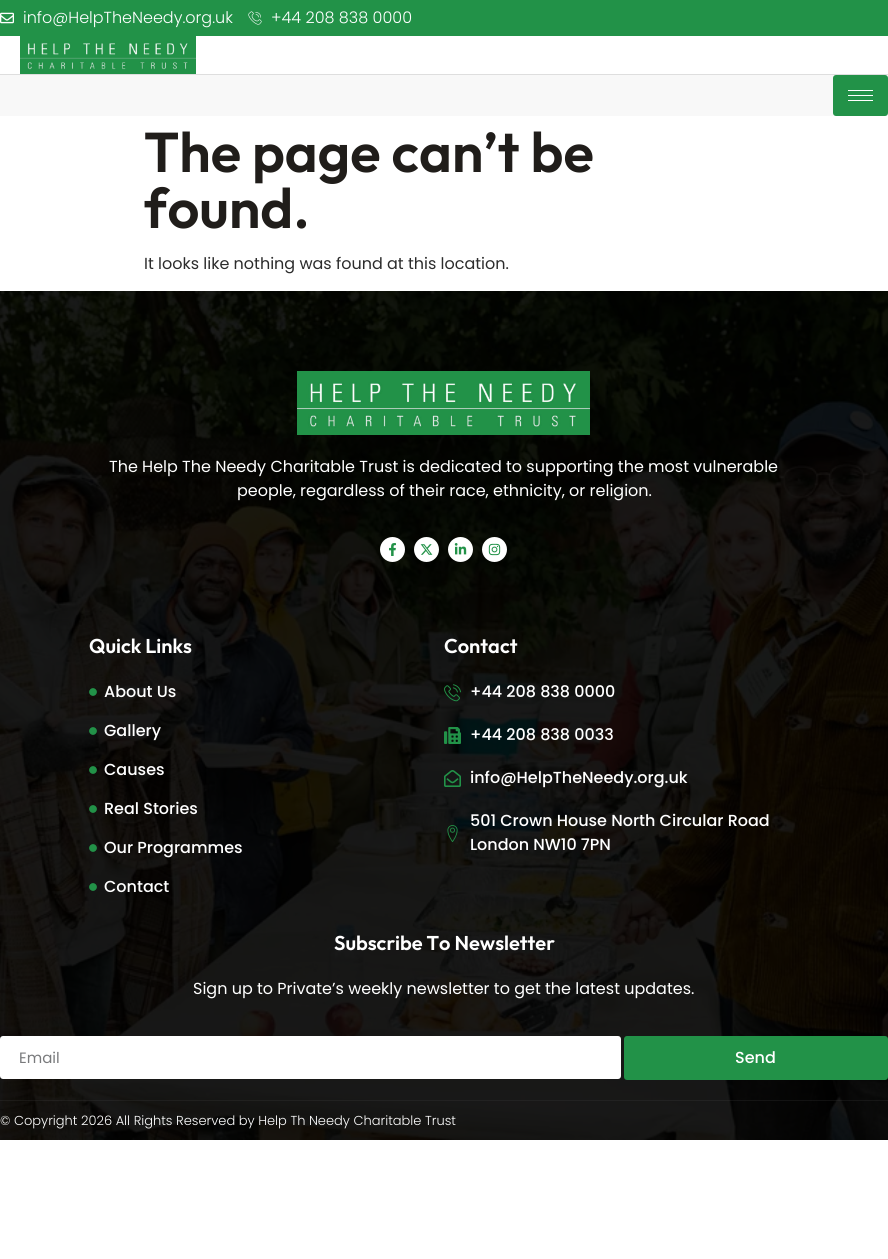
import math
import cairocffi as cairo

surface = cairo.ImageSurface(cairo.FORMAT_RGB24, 888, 1259)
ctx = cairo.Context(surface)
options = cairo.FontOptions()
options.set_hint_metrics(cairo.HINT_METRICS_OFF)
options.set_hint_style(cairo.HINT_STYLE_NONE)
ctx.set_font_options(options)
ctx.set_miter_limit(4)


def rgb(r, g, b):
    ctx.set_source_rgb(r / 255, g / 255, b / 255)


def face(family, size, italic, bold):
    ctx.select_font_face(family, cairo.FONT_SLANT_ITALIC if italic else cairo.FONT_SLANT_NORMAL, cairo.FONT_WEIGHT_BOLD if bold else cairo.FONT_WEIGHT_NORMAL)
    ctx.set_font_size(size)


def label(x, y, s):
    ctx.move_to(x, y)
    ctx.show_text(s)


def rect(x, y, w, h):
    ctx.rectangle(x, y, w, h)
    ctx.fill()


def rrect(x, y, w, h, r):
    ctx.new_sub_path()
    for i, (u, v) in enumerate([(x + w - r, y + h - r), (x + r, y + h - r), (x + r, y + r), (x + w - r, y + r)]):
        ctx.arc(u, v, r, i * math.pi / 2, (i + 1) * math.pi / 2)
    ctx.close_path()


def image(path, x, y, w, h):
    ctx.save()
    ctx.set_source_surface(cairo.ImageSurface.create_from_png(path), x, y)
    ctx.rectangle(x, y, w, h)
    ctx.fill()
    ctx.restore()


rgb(255, 255, 255)
ctx.paint()
rgb(34, 146, 72)
rect(0, 0, 888, 36)
image('image0.png', 0, 12, 14, 12)
face('Poppins Light', 16, 0, 0)
rgb(255, 255, 255)
label(23, 23, 'info@HelpTheNeedy.org.uk')
image('image1.png', 248, 11, 14, 14)
label(271, 23, '+44 208 838 0000')
rgb(222, 222, 222)
rect(0, 74, 888, 1)
image('image2.png', 20, 36, 176, 38)
rgb(248, 248, 248)
rect(0, 75, 888, 41)
rgb(34, 146, 72)
rrect(833, 75, 55, 41, 3)
ctx.fill()
rgb(255, 255, 255)
rect(848, 90, 25, 1)
rect(848, 95, 25, 1)
rect(848, 100, 25, 1)
face('Outfit SemiBold', 56, 0, 0)
rgb(32, 29, 26)
label(144, 172, 'The page can’t be')
label(144, 228, 'found.')
face('Poppins', 16, 0, 0)
rgb(44, 44, 44)
label(144, 269, 'It looks like nothing was found at this location.')
image('image3.png', 0, 291, 888, 849)
image('image4.png', 297, 371, 293, 64)
rgb(255, 255, 255)
label(109, 472, 'The Help The Needy Charitable Trust is dedicated to supporting the most vulnerable')
label(237, 496, 'people, regardless of their race, ethnicity, or religion.')
ctx.new_path()
ctx.arc(392.5, 549.5, 12.5, 0, 2 * math.pi)
ctx.fill()
image('image5.png', 389, 543, 7, 13)
ctx.arc(426.5, 549.5, 12.5, 0, 2 * math.pi)
ctx.fill()
image('image6.png', 420, 544, 13, 11)
ctx.arc(460.5, 549.5, 12.5, 0, 2 * math.pi)
ctx.fill()
image('image7.png', 454, 543, 13, 12)
ctx.arc(494.5, 549.5, 12.5, 0, 2 * math.pi)
ctx.fill()
image('image8.png', 488, 543, 13, 13)
face('Outfit SemiBold', 20, 0, 0)
label(89, 653, 'Quick Links')
image('image9.png', 89, 688, 8, 8)
face('Poppins Medium', 16, 0, 0)
label(104, 697, 'About Us')
image('image10.png', 89, 727, 8, 8)
label(104, 736, 'Gallery')
image('image11.png', 89, 766, 8, 8)
label(104, 775, 'Causes')
image('image12.png', 89, 805, 8, 8)
label(104, 814, 'Real Stories')
image('image13.png', 89, 844, 8, 8)
label(104, 853, 'Our Programmes')
image('image14.png', 89, 883, 8, 8)
label(104, 892, 'Contact')
face('Outfit SemiBold', 20, 0, 0)
label(444, 653, 'Contact')
image('image15.png', 444, 684, 17, 18)
face('Poppins Medium', 16, 0, 0)
label(470, 697, '+44 208 838 0000')
image('image16.png', 444, 727, 17, 17)
label(470, 740, '+44 208 838 0033')
image('image17.png', 444, 770, 17, 17)
label(470, 783, 'info@HelpTheNeedy.org.uk')
image('image18.png', 447, 825, 11, 17)
label(470, 826, '501 Crown House North Circular Road')
label(470, 850, 'London NW10 7PN')
face('Outfit SemiBold', 20, 0, 0)
label(334, 950, 'Subscribe To Newsletter')
face('Poppins', 16, 0, 0)
label(193, 994, 'Sign up to Private’s weekly newsletter to get the latest updates.')
rrect(1.5, 1037.5, 618, 40, 1.5)
ctx.fill_preserve()
ctx.set_line_width(3)
ctx.stroke()
face('Poppins', 15, 0, 0)
rgb(121, 122, 124)
label(19, 1063, 'Email')
rgb(34, 146, 72)
rrect(624, 1036, 264, 44, 3)
ctx.fill()
face('Poppins Medium', 16, 0, 0)
rgb(255, 255, 255)
label(735, 1063, 'Send')
ctx.set_source_rgba(0.314, 0.314, 0.314, 0.19)
rect(0, 1100, 888, 1)
face('Poppins Light', 13, 0, 0)
rgb(255, 255, 255)
label(0, 1125, '© Copyright 2026 All Rights Reserved by Help Th Needy Charitable Trust')
surface.write_to_png('render.png')
